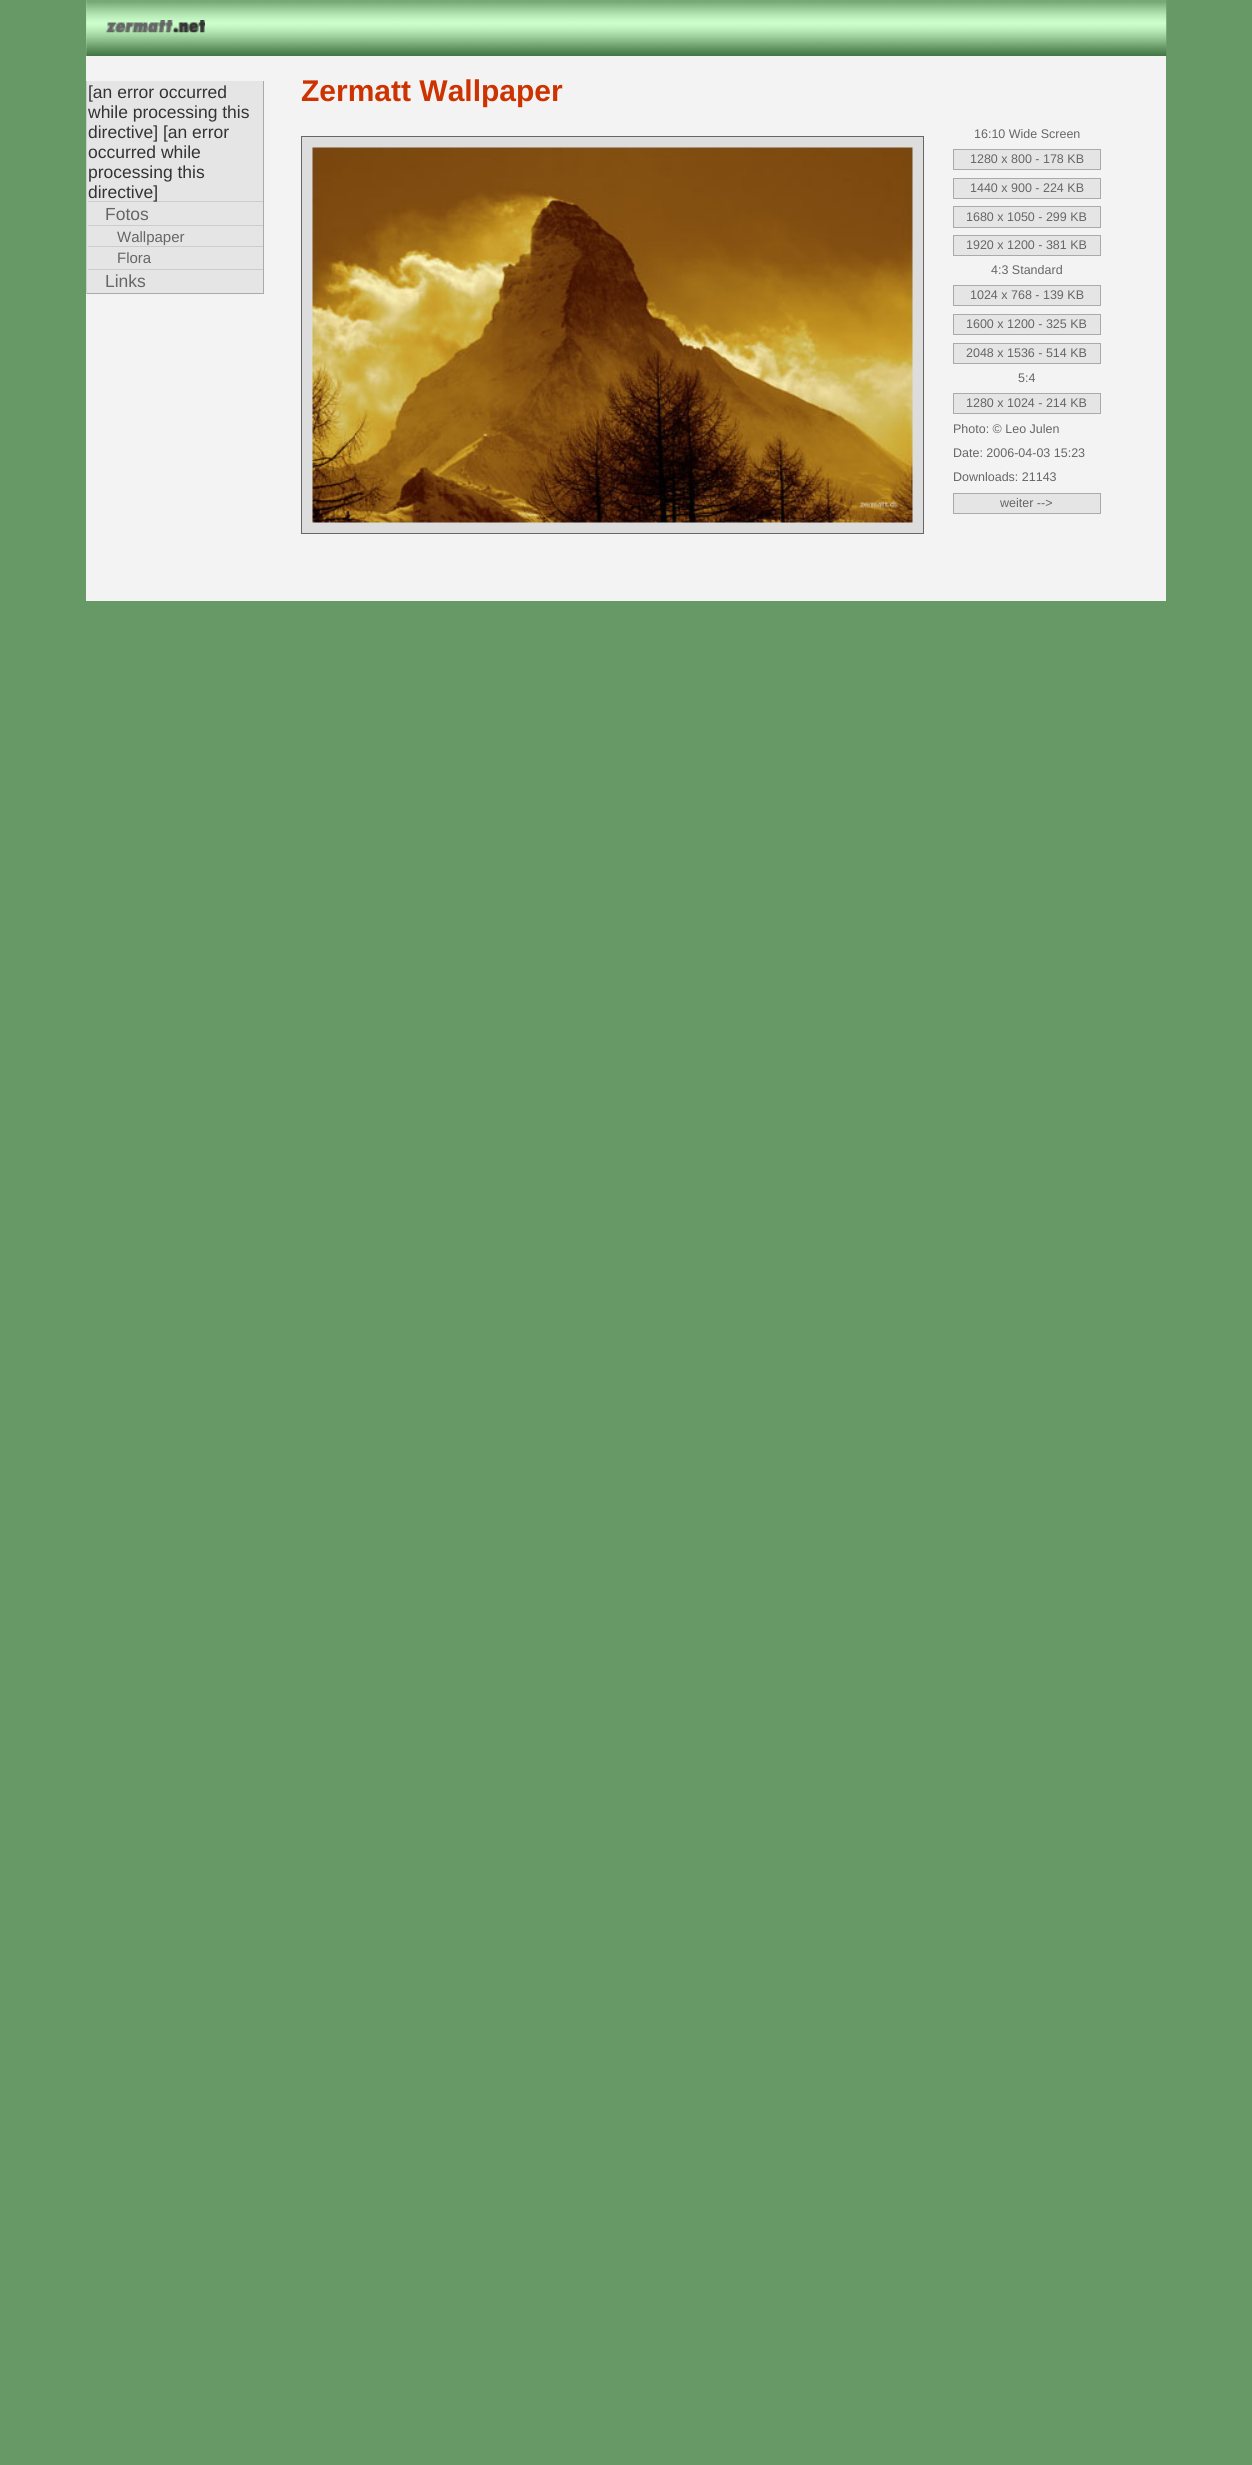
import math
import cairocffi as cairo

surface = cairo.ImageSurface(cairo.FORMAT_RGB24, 1252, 2465)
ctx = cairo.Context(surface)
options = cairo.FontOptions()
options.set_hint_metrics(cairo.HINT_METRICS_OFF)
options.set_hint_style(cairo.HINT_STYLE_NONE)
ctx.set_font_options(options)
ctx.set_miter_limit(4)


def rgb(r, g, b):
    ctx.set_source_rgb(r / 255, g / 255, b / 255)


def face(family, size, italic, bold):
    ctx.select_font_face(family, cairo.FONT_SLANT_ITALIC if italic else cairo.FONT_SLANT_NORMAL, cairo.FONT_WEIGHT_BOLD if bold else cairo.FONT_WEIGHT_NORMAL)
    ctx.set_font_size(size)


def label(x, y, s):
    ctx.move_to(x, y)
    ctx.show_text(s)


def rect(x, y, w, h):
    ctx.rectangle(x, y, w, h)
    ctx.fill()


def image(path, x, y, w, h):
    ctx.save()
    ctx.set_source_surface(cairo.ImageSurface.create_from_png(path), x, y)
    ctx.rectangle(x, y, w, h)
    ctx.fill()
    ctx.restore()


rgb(102, 153, 102)
ctx.paint()
rgb(170, 221, 170)
rect(86, 0, 1080, 56)
image('image0.png', 86, 0, 1081, 57)
image('image1.png', 106, 20, 99, 13)
rgb(243, 243, 243)
rect(86, 56, 1080, 545)
rgb(229, 229, 229)
rect(87, 81, 176, 212)
rgb(170, 170, 170)
rect(263, 81, 1, 213)
rect(86, 293, 178, 1)
rgb(204, 204, 204)
rect(86, 81, 1, 213)
face('Liberation Sans', 17.5, 0, 0)
rgb(51, 51, 51)
label(88, 98, '[an error occurred')
label(88, 118, 'while processing this')
label(88, 138, 'directive] [an error')
label(88, 158, 'occurred while')
label(88, 178, 'processing this')
rgb(204, 204, 204)
rect(88, 201, 175, 1)
rgb(51, 51, 51)
label(88, 198, 'directive]')
rgb(102, 102, 102)
label(105, 220, 'Fotos')
rgb(204, 204, 204)
rect(88, 225, 175, 1)
face('Liberation Sans', 15, 0, 0)
rgb(102, 102, 102)
label(117, 242, 'Wallpaper')
rgb(204, 204, 204)
rect(88, 246, 175, 1)
rgb(102, 102, 102)
label(117, 263, 'Flora')
rgb(204, 204, 204)
rect(88, 269, 175, 1)
face('Liberation Sans', 17.5, 0, 0)
rgb(102, 102, 102)
label(105, 287, 'Links')
face('Liberation Sans', 30, 0, 1)
rgb(204, 51, 0)
label(301, 101, 'Zermatt Wallpaper')
rgb(221, 221, 221)
ctx.rectangle(301.5, 136.5, 622, 397)
ctx.fill_preserve()
rgb(102, 102, 102)
ctx.set_line_width(1)
ctx.stroke()
image('image2.png', 312, 147, 601, 376)
face('Liberation Sans', 12.5, 0, 0)
label(974, 138, '16:10 Wide Screen')
rgb(229, 229, 229)
ctx.rectangle(953.5, 149.5, 147, 20)
ctx.fill_preserve()
rgb(170, 170, 170)
ctx.stroke()
rgb(102, 102, 102)
label(970, 163, '1280 x 800 - 178 KB')
rgb(229, 229, 229)
ctx.rectangle(953.5, 178.5, 147, 20)
ctx.fill_preserve()
rgb(170, 170, 170)
ctx.stroke()
rgb(102, 102, 102)
label(970, 192, '1440 x 900 - 224 KB')
rgb(229, 229, 229)
ctx.rectangle(953.5, 206.5, 147, 21)
ctx.fill_preserve()
rgb(170, 170, 170)
ctx.stroke()
rgb(102, 102, 102)
label(966, 221, '1680 x 1050 - 299 KB')
rgb(229, 229, 229)
ctx.rectangle(953.5, 235.5, 147, 20)
ctx.fill_preserve()
rgb(170, 170, 170)
ctx.stroke()
rgb(102, 102, 102)
label(966, 249, '1920 x 1200 - 381 KB')
label(991, 274, '4:3 Standard')
rgb(229, 229, 229)
ctx.rectangle(953.5, 285.5, 147, 20)
ctx.fill_preserve()
rgb(170, 170, 170)
ctx.stroke()
rgb(102, 102, 102)
label(970, 299, '1024 x 768 - 139 KB')
rgb(229, 229, 229)
ctx.rectangle(953.5, 314.5, 147, 20)
ctx.fill_preserve()
rgb(170, 170, 170)
ctx.stroke()
rgb(102, 102, 102)
label(966, 328, '1600 x 1200 - 325 KB')
rgb(229, 229, 229)
ctx.rectangle(953.5, 343.5, 147, 20)
ctx.fill_preserve()
rgb(170, 170, 170)
ctx.stroke()
rgb(102, 102, 102)
label(966, 357, '2048 x 1536 - 514 KB')
label(1018, 382, '5:4')
rgb(229, 229, 229)
ctx.rectangle(953.5, 393.5, 147, 20)
ctx.fill_preserve()
rgb(170, 170, 170)
ctx.stroke()
rgb(102, 102, 102)
label(966, 407, '1280 x 1024 - 214 KB')
label(953, 433, 'Photo: © Leo Julen')
label(953, 457, 'Date: 2006-04-03 15:23')
label(953, 481, 'Downloads: 21143')
rgb(229, 229, 229)
ctx.rectangle(953.5, 493.5, 147, 20)
ctx.fill_preserve()
rgb(170, 170, 170)
ctx.stroke()
rgb(102, 102, 102)
label(1000, 507, 'weiter -->')
surface.write_to_png('render.png')
